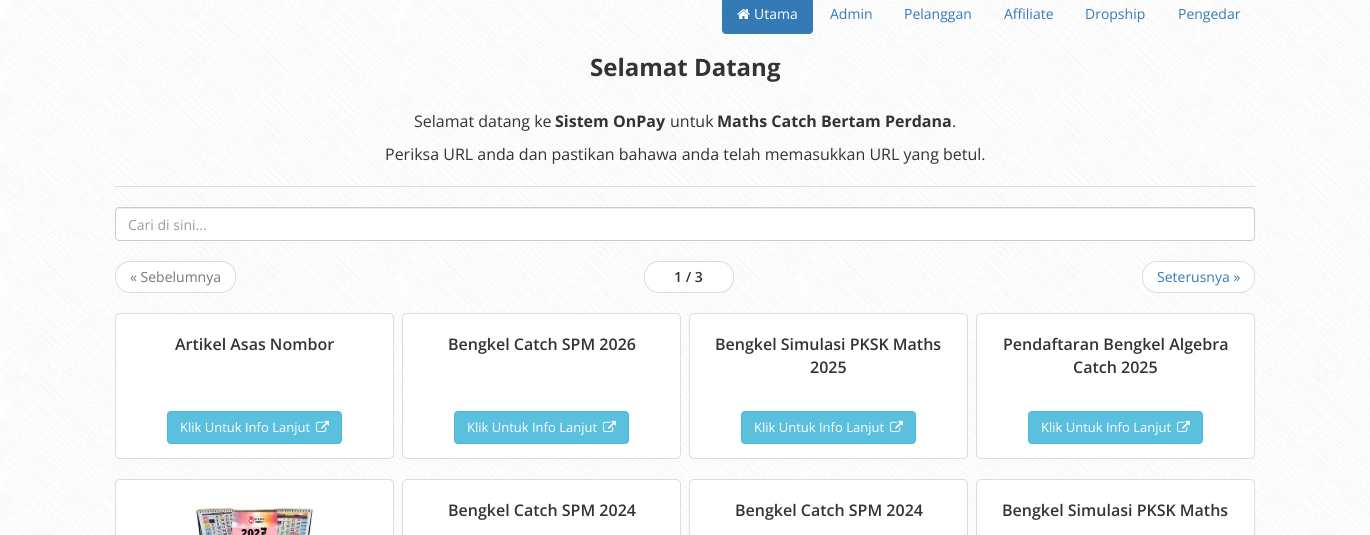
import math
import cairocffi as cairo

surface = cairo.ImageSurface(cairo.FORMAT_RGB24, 1370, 535)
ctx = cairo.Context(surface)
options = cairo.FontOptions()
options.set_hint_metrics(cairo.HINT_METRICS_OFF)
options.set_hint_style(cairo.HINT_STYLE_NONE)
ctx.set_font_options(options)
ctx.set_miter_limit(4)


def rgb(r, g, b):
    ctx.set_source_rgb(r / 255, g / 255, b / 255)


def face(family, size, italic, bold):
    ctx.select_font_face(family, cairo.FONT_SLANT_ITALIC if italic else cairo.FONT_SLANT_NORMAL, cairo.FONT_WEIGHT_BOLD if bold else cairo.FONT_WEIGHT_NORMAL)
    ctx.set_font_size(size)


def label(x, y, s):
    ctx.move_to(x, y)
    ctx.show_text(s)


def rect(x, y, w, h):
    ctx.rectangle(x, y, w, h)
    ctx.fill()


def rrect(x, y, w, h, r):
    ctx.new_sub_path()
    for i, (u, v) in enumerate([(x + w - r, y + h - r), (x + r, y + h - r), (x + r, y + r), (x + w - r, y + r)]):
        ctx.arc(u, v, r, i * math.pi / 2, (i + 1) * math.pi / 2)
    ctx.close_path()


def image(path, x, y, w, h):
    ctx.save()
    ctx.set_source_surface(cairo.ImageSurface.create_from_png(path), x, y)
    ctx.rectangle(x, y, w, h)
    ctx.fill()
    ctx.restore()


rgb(255, 255, 255)
ctx.paint()
image('image0.png', 0, 0, 1370, 535)
rgb(51, 122, 183)
rrect(722, -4, 91, 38, 4)
ctx.fill()
image('image1.png', 737, 9, 13, 10)
face('Open Sans', 14, 0, 0)
rgb(255, 255, 255)
label(754, 19, 'Utama')
rgb(51, 122, 183)
label(830, 19, 'Admin')
label(904, 19, 'Pelanggan')
label(1004, 19, 'Affiliate')
label(1085, 19, 'Dropship')
label(1178, 19, 'Pengedar')
face('Open Sans', 24, 0, 1)
rgb(51, 51, 51)
label(590, 76, 'Selamat Datang')
face('Open Sans', 16, 0, 0)
label(414, 127, 'Selamat datang ke')
face('Open Sans', 16, 0, 1)
label(555, 127, 'Sistem OnPay')
face('Open Sans', 16, 0, 0)
label(670, 127, 'untuk')
face('Open Sans', 16, 0, 1)
label(717, 127, 'Maths Catch Bertam Perdana')
face('Open Sans', 16, 0, 0)
label(952, 127, '.')
label(385, 160, 'Periksa URL anda dan pastikan bahawa anda telah memasukkan URL yang betul.')
rgb(221, 221, 221)
rect(115, 186, 1140, 1)
rgb(255, 255, 255)
rrect(115, 207, 1140, 34, 4)
ctx.fill()
rgb(236, 236, 236)
ctx.new_path()
ctx.move_to(119, 209)
ctx.line_to(1251, 209)
ctx.curve_to(1253, 209, 1254, 210, 1254, 212)
ctx.line_to(1254, 211)
ctx.curve_to(1254, 209, 1253, 208, 1251, 208)
ctx.line_to(119, 208)
ctx.curve_to(117, 208, 116, 209, 116, 211)
ctx.line_to(116, 212)
ctx.curve_to(116, 210, 117, 209, 119, 209)
ctx.close_path()
ctx.fill()
rrect(115.5, 207.5, 1139, 33, 3.5)
rgb(204, 204, 204)
ctx.set_line_width(1)
ctx.stroke()
face('Open Sans', 14, 0, 0)
rgb(153, 153, 153)
label(128, 230, 'Cari di sini...')
rgb(255, 255, 255)
rrect(115.5, 261.5, 120, 31, 14.5)
ctx.fill_preserve()
rgb(221, 221, 221)
ctx.stroke()
rgb(119, 119, 119)
label(130, 282, '« Sebelumnya')
rgb(255, 255, 255)
rrect(644.5, 261.5, 89, 31, 14.5)
ctx.fill_preserve()
rgb(221, 221, 221)
ctx.stroke()
face('Open Sans SemiBold', 14, 0, 0)
rgb(51, 51, 51)
label(674, 282, '1 / 3')
rgb(255, 255, 255)
rrect(1142.5, 261.5, 112, 31, 14.5)
ctx.fill_preserve()
rgb(221, 221, 221)
ctx.stroke()
face('Open Sans', 14, 0, 0)
rgb(51, 122, 183)
label(1157, 282, 'Seterusnya »')
rgb(255, 255, 255)
rrect(115.5, 313.5, 278, 145, 4.5)
ctx.fill_preserve()
rgb(221, 221, 221)
ctx.stroke()
face('Open Sans SemiBold', 16, 0, 0)
rgb(51, 51, 51)
label(175, 350, 'Artikel Asas Nombor')
rgb(91, 192, 222)
rrect(167.5, 411.5, 174, 32, 3.5)
ctx.fill_preserve()
rgb(70, 184, 218)
ctx.stroke()
face('Open Sans', 13, 0, 0)
rgb(255, 255, 255)
label(180, 432, 'Klik Untuk Info Lanjut')
image('image2.png', 316, 420, 13, 12)
rrect(402.5, 313.5, 278, 145, 4.5)
ctx.fill_preserve()
rgb(221, 221, 221)
ctx.stroke()
face('Open Sans SemiBold', 16, 0, 0)
rgb(51, 51, 51)
label(448, 350, 'Bengkel Catch SPM 2026')
rgb(91, 192, 222)
rrect(454.5, 411.5, 174, 32, 3.5)
ctx.fill_preserve()
rgb(70, 184, 218)
ctx.stroke()
face('Open Sans', 13, 0, 0)
rgb(255, 255, 255)
label(467, 432, 'Klik Untuk Info Lanjut')
image('image2.png', 603, 420, 13, 12)
rrect(689.5, 313.5, 278, 145, 4.5)
ctx.fill_preserve()
rgb(221, 221, 221)
ctx.stroke()
face('Open Sans SemiBold', 16, 0, 0)
rgb(51, 51, 51)
label(715, 350, 'Bengkel Simulasi PKSK Maths')
label(810, 373, '2025')
rgb(91, 192, 222)
rrect(741.5, 411.5, 174, 32, 3.5)
ctx.fill_preserve()
rgb(70, 184, 218)
ctx.stroke()
face('Open Sans', 13, 0, 0)
rgb(255, 255, 255)
label(754, 432, 'Klik Untuk Info Lanjut')
image('image2.png', 890, 420, 13, 12)
rrect(976.5, 313.5, 278, 145, 4.5)
ctx.fill_preserve()
rgb(221, 221, 221)
ctx.stroke()
face('Open Sans SemiBold', 16, 0, 0)
rgb(51, 51, 51)
label(1003, 350, 'Pendaftaran Bengkel Algebra')
label(1073, 373, 'Catch 2025')
rgb(91, 192, 222)
rrect(1028.5, 411.5, 174, 32, 3.5)
ctx.fill_preserve()
rgb(70, 184, 218)
ctx.stroke()
face('Open Sans', 13, 0, 0)
rgb(255, 255, 255)
label(1041, 432, 'Klik Untuk Info Lanjut')
image('image2.png', 1177, 420, 13, 12)
rrect(115.5, 479.5, 278, 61, 4.5)
ctx.fill_preserve()
rgb(221, 221, 221)
ctx.stroke()
image('image3.png', 195, 507, 118, 28)
rgb(255, 255, 255)
rrect(402.5, 479.5, 278, 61, 4.5)
ctx.fill_preserve()
rgb(221, 221, 221)
ctx.stroke()
face('Open Sans SemiBold', 16, 0, 0)
rgb(51, 51, 51)
label(448, 516, 'Bengkel Catch SPM 2024')
rgb(255, 255, 255)
rrect(689.5, 479.5, 278, 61, 4.5)
ctx.fill_preserve()
rgb(221, 221, 221)
ctx.stroke()
rgb(51, 51, 51)
label(735, 516, 'Bengkel Catch SPM 2024')
rgb(255, 255, 255)
rrect(976.5, 479.5, 278, 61, 4.5)
ctx.fill_preserve()
rgb(221, 221, 221)
ctx.stroke()
rgb(51, 51, 51)
label(1002, 516, 'Bengkel Simulasi PKSK Maths')
surface.write_to_png('render.png')
